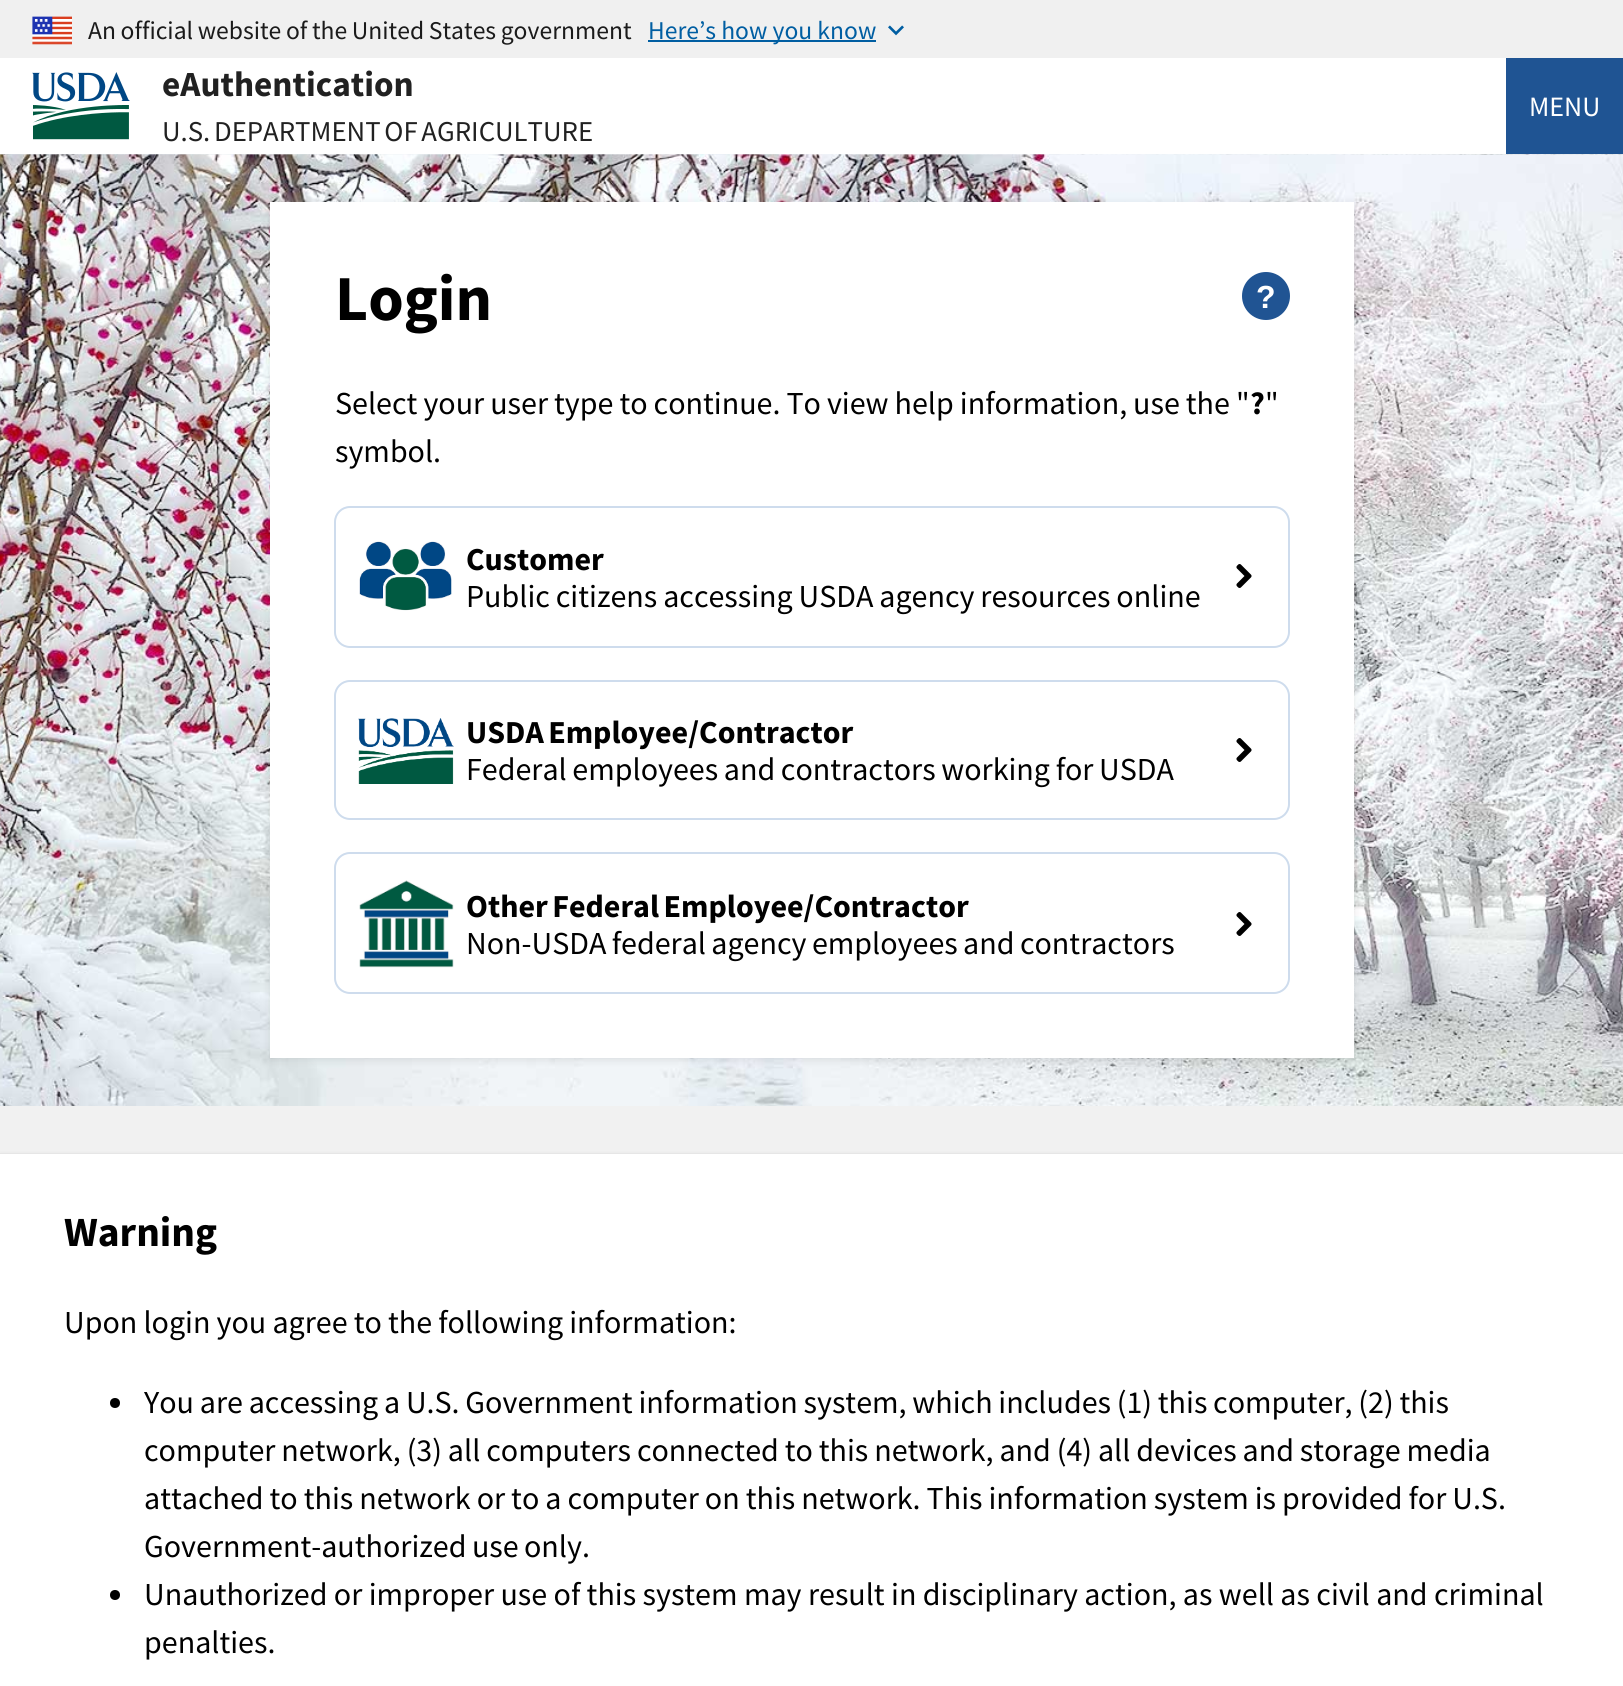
import math
import cairocffi as cairo

surface = cairo.ImageSurface(cairo.FORMAT_RGB24, 1623, 1686)
ctx = cairo.Context(surface)
options = cairo.FontOptions()
options.set_hint_metrics(cairo.HINT_METRICS_OFF)
options.set_hint_style(cairo.HINT_STYLE_NONE)
ctx.set_font_options(options)
ctx.set_miter_limit(4)


def rgb(r, g, b):
    ctx.set_source_rgb(r / 255, g / 255, b / 255)


def face(family, size, italic, bold):
    ctx.select_font_face(family, cairo.FONT_SLANT_ITALIC if italic else cairo.FONT_SLANT_NORMAL, cairo.FONT_WEIGHT_BOLD if bold else cairo.FONT_WEIGHT_NORMAL)
    ctx.set_font_size(size)


def label(x, y, s):
    ctx.move_to(x, y)
    ctx.show_text(s)


def tracked(x, y, s, letter, word):
    ctx.move_to(x, y)
    for ch in s:
        ctx.show_text(ch)
        ctx.rel_move_to(letter + word * (ch == ' '), 0)


def rect(x, y, w, h):
    ctx.rectangle(x, y, w, h)
    ctx.fill()


def rrect(x, y, w, h, r):
    ctx.new_sub_path()
    for i, (u, v) in enumerate([(x + w - r, y + h - r), (x + r, y + h - r), (x + r, y + r), (x + w - r, y + r)]):
        ctx.arc(u, v, r, i * math.pi / 2, (i + 1) * math.pi / 2)
    ctx.close_path()


def soft_shadow(x, y, w, h, r, blur, alpha):
    ctx.push_group_with_content(cairo.CONTENT_ALPHA)
    ctx.set_operator(cairo.OPERATOR_SOURCE)
    for i in range(15, -16, -2):
        e = blur * i / 6
        if min(w, h) + 2 * e > 0:
            ctx.set_source_rgba(0, 0, 0, alpha * math.erfc((i - 1) / 8.5) / 2)
            rrect(x - e, y - e, w + 2 * e, h + 2 * e, max(0, min(r + e + blur * .6, min(w, h) / 2 + e)))
            ctx.fill()
    ctx.mask(ctx.pop_group())


def image(path, x, y, w, h):
    ctx.save()
    ctx.set_source_surface(cairo.ImageSurface.create_from_png(path), x, y)
    ctx.rectangle(x, y, w, h)
    ctx.fill()
    ctx.restore()


rgb(255, 255, 255)
ctx.paint()
rgb(240, 240, 240)
rect(0, 0, 1623, 58)
image('image0.png', 32, 16, 40, 29)
face('Source Sans Pro', 25.6, 0, 0)
rgb(27, 27, 27)
tracked(88, 39, 'An official website of the United States government', 0, -0.5)
rgb(0, 94, 162)
rect(648, 40, 228, 2)
label(648, 39, 'Here’s how you know')
image('image1.png', 888, 25, 16, 11)
image('image2.png', 32, 72, 98, 68)
face('Source Sans Pro', 35.25, 0, 1)
rgb(33, 33, 33)
label(162, 96, 'eAuthentication')
face('Source Sans Pro', 28.75, 0, 0)
tracked(162, 141, 'U.S. DEPARTMENT OF AGRICULTURE', 0, -2)
rgb(31, 84, 147)
rect(1506, 58, 117, 96)
face('Source Sans Pro', 28, 0, 0)
rgb(255, 255, 255)
label(1529, 116, 'MENU')
rgb(241, 241, 241)
rect(0, 1106, 1623, 48)
image('image3.png', 0, 154, 1623, 952)
rgb(0, 0, 0)
soft_shadow(270, 204, 1084, 856, 0, 4, 0.1)
rgb(255, 255, 255)
rect(270, 202, 1084, 856)
face('Source Sans Pro', 64, 0, 1)
rgb(0, 0, 0)
label(335, 320, 'Login')
rgb(32, 84, 147)
ctx.new_path()
ctx.arc(1266, 296, 22, 0, 2 * math.pi)
ctx.fill_preserve()
ctx.set_line_width(4)
ctx.stroke()
face('Liberation Sans', 32, 0, 1)
rgb(255, 255, 255)
label(1256, 308, '?')
face('Source Sans Pro', 32, 0, 0)
rgb(0, 0, 0)
tracked(335, 414, 'Select your user type to continue. To view help information, use the "', 0, -0.4)
face('Source Sans Pro', 32, 0, 1)
label(1250, 414, '?')
face('Source Sans Pro', 32, 0, 0)
label(1265, 414, '"')
label(335, 462, 'symbol.')
image('image4.png', 1236, 564, 16, 24)
rrect(335, 507, 954, 140, 15)
rgb(206, 220, 237)
ctx.set_line_width(2)
ctx.stroke()
image('image5.png', 359, 541, 93, 70)
face('Source Sans Pro', 32, 0, 1)
rgb(0, 0, 0)
label(466, 570, 'Customer')
face('Source Sans Pro', 32, 0, 0)
tracked(466, 607, 'Public citizens accessing USDA agency resources online', 0, -0.5)
image('image4.png', 1236, 738, 16, 24)
rrect(335, 681, 954, 138, 15)
rgb(206, 220, 237)
ctx.stroke()
image('image6.png', 358, 718, 96, 66)
face('Source Sans Pro', 32, 0, 1)
rgb(0, 0, 0)
tracked(466, 743, 'USDA Employee/Contractor', 0, -2)
face('Source Sans Pro', 32, 0, 0)
tracked(466, 780, 'Federal employees and contractors working for USDA', 0, -0.75)
image('image4.png', 1236, 912, 16, 24)
rrect(335, 853, 954, 140, 15)
rgb(206, 220, 237)
ctx.stroke()
image('image7.png', 359, 880, 95, 88)
face('Source Sans Pro', 32, 0, 1)
rgb(0, 0, 0)
tracked(466, 917, 'Other Federal Employee/Contractor', 0, -2)
face('Source Sans Pro', 32, 0, 0)
tracked(466, 954, 'Non-USDA federal agency employees and contractors', 0, -1)
rgb(0, 0, 0)
soft_shadow(0, 1156, 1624, 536, 0, 2, 0.24)
soft_shadow(0, 1156, 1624, 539, 0, 3, 0.12)
rgb(255, 255, 255)
rect(0, 1154, 1623, 532)
face('Source Sans Pro', 41.5, 0, 1)
rgb(0, 0, 0)
label(64, 1246, 'Warning')
face('Source Sans Pro', 32, 0, 0)
tracked(64, 1333, 'Upon login you agree to the following information:', 0, -0.25)
ctx.new_path()
ctx.arc(115, 1403, 5, 0, 2 * math.pi)
ctx.fill()
tracked(144, 1413, 'You are accessing a U.S. Government information system, which includes (1) this computer, (2) this', 0, -0.6)
tracked(144, 1461, 'computer network, (3) all computers connected to this network, and (4) all devices and storage media', 0, -0.5)
tracked(144, 1509, 'attached to this network or to a computer on this network. This information system is provided for U.S.', 0, -0.4)
tracked(144, 1557, 'Government-authorized use only.', 0, -1)
ctx.new_path()
ctx.arc(115, 1595, 5, 0, 2 * math.pi)
ctx.fill()
label(144, 1605, 'Unauthorized or improper use of this system may result in disciplinary action, as well as civil and criminal')
label(144, 1653, 'penalties.')
surface.write_to_png('render.png')
